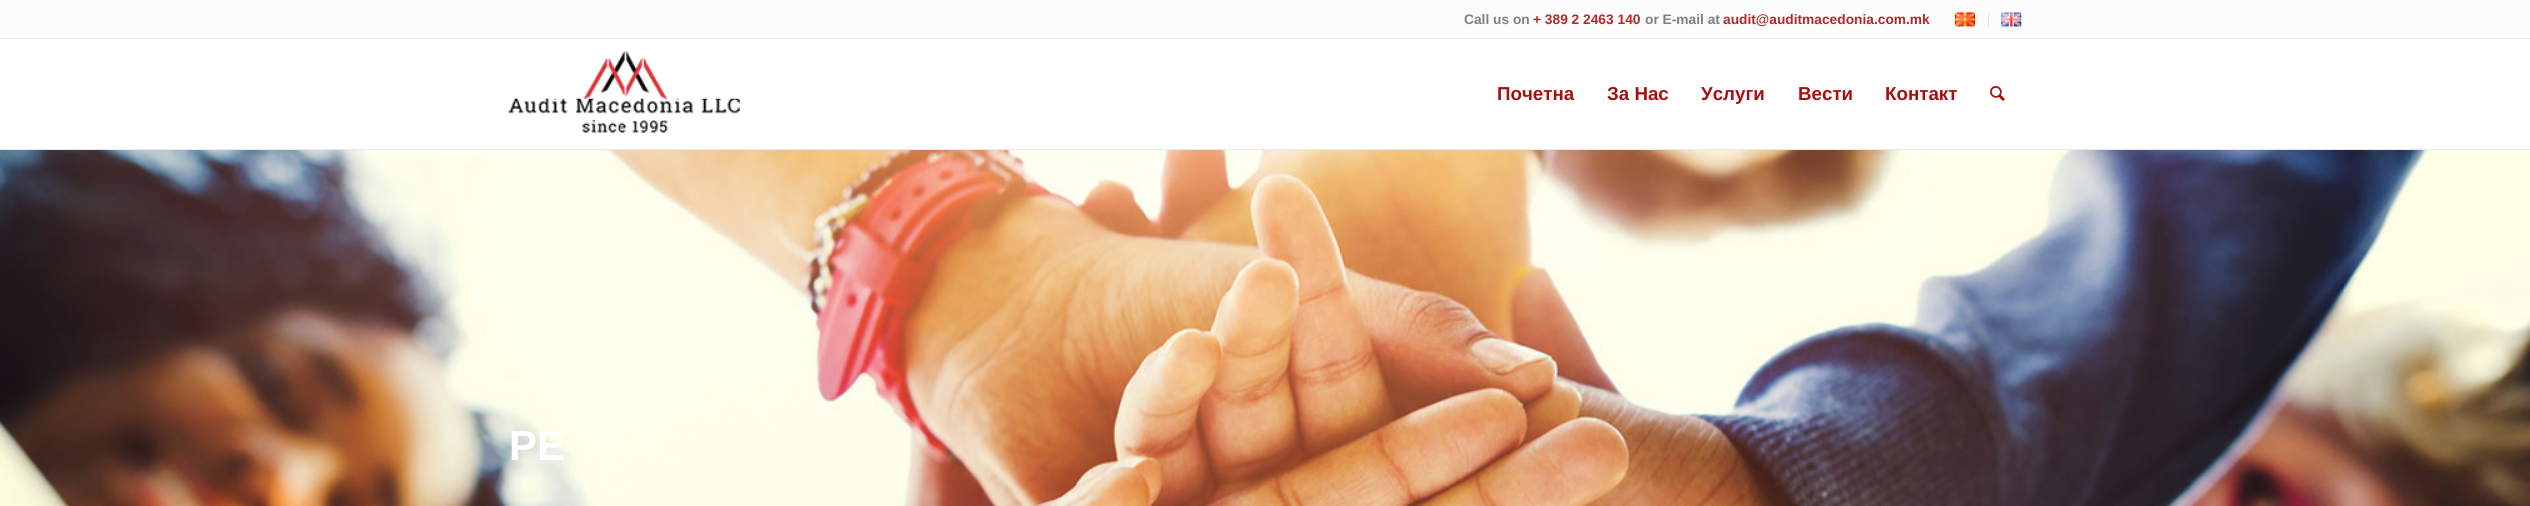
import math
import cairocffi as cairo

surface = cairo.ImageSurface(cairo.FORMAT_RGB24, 2530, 506)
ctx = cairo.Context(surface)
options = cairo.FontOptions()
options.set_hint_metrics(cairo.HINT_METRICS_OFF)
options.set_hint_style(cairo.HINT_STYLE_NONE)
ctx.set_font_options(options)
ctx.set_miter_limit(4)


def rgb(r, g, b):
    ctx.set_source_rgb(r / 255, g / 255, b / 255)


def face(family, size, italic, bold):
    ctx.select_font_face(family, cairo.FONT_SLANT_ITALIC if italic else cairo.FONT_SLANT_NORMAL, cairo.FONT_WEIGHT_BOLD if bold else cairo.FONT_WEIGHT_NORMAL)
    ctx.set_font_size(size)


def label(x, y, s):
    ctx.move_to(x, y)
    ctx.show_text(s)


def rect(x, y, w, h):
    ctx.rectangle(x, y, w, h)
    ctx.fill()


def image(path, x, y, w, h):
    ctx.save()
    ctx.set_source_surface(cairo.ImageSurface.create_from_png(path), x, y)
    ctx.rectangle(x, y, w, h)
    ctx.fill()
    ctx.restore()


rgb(255, 255, 255)
ctx.paint()
rgb(252, 252, 252)
rect(0, 0, 2530, 38)
rgb(232, 232, 232)
rect(0, 38, 2530, 1)
face('Liberation Sans', 13.75, 0, 1)
rgb(128, 128, 128)
label(1464, 24, 'Call us on')
rgb(176, 43, 44)
label(1533, 24, '+ 389 2 2463 140')
rgb(128, 128, 128)
label(1645, 24, 'or E-mail at')
rgb(176, 43, 44)
label(1723, 24, 'audit@auditmacedonia.com.mk')
rgb(232, 232, 232)
rect(1988, 13, 1, 15)
image('image0.png', 1955, 12, 20, 15)
image('image1.png', 2001, 12, 21, 15)
rect(0, 149, 2530, 1)
image('image2.png', 508, 51, 232, 82)
face('Liberation Sans', 18.75, 0, 1)
rgb(168, 16, 16)
label(1497, 100, 'Почетна')
label(1607, 100, 'За Нас')
label(1701, 100, 'Услуги')
label(1798, 100, 'Вести')
label(1885, 100, 'Контакт')
image('image3.png', 1990, 86, 15, 15)
image('image4.png', 0, 150, 2530, 356)
face('Liberation Sans', 42, 0, 1)
rgb(255, 255, 255)
label(509, 460, 'РЕ')
surface.write_to_png('render.png')
